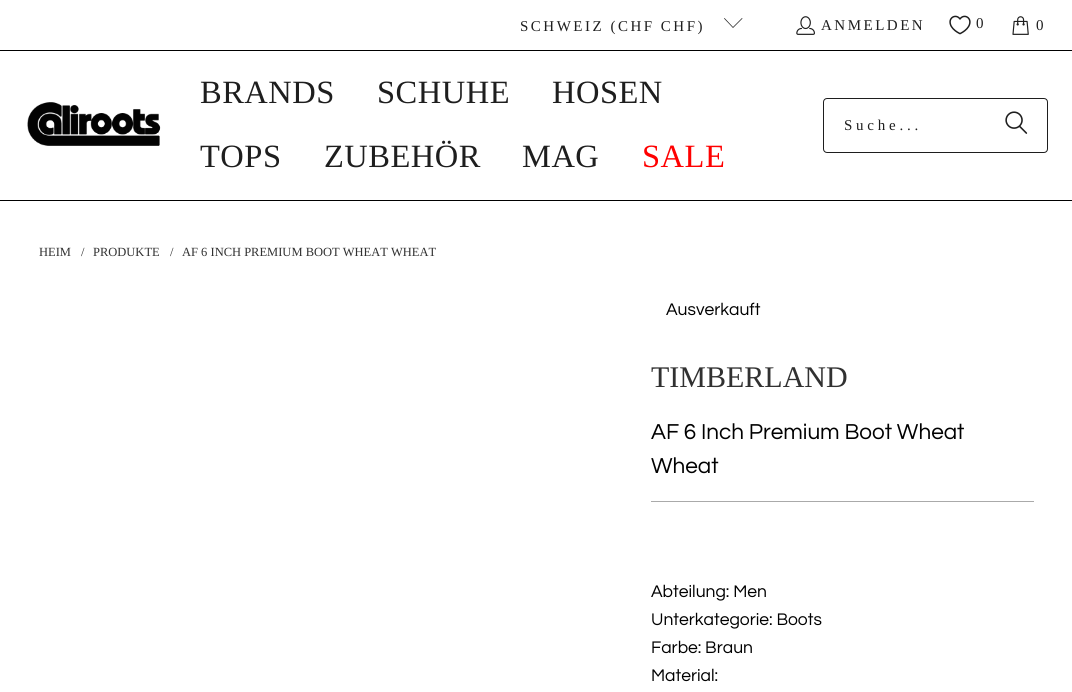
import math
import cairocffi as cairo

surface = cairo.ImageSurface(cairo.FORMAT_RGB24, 1072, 692)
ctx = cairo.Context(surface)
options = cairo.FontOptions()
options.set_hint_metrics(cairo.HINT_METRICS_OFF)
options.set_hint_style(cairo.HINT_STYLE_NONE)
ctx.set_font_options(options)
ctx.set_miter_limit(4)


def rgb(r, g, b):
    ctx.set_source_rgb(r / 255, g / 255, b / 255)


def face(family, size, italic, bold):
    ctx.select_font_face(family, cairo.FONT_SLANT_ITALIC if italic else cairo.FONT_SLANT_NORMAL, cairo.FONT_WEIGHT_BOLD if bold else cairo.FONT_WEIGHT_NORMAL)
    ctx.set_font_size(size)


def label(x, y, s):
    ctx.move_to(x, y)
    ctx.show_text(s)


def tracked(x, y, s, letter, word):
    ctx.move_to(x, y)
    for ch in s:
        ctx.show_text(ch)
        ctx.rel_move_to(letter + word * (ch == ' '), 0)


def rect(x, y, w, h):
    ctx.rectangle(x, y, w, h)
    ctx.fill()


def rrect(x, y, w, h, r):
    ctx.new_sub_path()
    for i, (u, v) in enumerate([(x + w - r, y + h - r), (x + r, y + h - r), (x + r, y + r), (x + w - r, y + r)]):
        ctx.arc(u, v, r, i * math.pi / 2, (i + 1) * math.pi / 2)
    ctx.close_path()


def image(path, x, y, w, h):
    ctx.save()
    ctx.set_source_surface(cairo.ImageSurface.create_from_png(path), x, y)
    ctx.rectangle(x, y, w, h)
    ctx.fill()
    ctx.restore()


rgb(255, 255, 255)
ctx.paint()
face('Liberation Serif', 15, 0, 0)
rgb(30, 30, 30)
tracked(520, 31, 'SCHWEIZ (CHF CHF)', 2.5, 0)
ctx.new_path()
ctx.move_to(733, 28)
ctx.line_to(724, 18.5)
ctx.line_to(724.5, 18)
ctx.line_to(733, 27)
ctx.line_to(742, 18)
ctx.line_to(742.5, 18.5)
ctx.close_path()
ctx.fill()
image('image0.png', 796, 16, 19, 19)
tracked(821, 30, 'ANMELDEN', 2.5, 0)
image('image1.png', 949, 15, 22, 20)
tracked(976, 28, '0', 8, 0)
image('image2.png', 1012, 16, 17, 19)
label(1036, 30, '0')
rgb(0, 0, 0)
rect(0, 50, 1072, 1)
rect(0, 200, 1072, 1)
image('image3.png', 27, 102, 134, 44)
face('Liberation Serif', 32.5, 0, 0)
rgb(30, 30, 30)
tracked(200, 103, 'BRANDS', 0.5, 0)
tracked(377, 103, 'SCHUHE', 0.5, 0)
tracked(552, 103, 'HOSEN', 0.5, 0)
tracked(200, 167, 'TOPS', 0.5, 0)
tracked(324, 167, 'ZUBEHÖR', 0.5, 0)
tracked(522, 167, 'MAG', 0.5, 0)
rgb(255, 0, 0)
tracked(642, 167, 'SALE', 0.5, 0)
rrect(823.5, 98.5, 224, 54, 3.5)
rgb(30, 30, 30)
ctx.set_line_width(1)
ctx.stroke()
face('Liberation Serif', 15, 0, 0)
tracked(844, 130, 'Suche...', 3.75, 0)
image('image4.png', 1005, 111, 23, 23)
face('Liberation Serif', 12.5, 0, 0)
rgb(49, 49, 49)
label(39, 256, 'HEIM')
label(81, 256, '/')
label(93, 256, 'PRODUKTE')
label(170, 256, '/')
label(182, 256, 'AF 6 INCH PREMIUM BOOT WHEAT WHEAT')
face('Questrial', 17.5, 0, 0)
rgb(0, 0, 0)
label(666, 315, 'Ausverkauft')
face('Liberation Serif', 30, 0, 0)
rgb(49, 49, 49)
label(651, 387, 'TIMBERLAND')
face('Questrial', 22.5, 0, 0)
rgb(0, 0, 0)
label(651, 439, 'AF 6 Inch Premium Boot Wheat')
label(651, 473, 'Wheat')
rgb(170, 170, 170)
rect(651, 501, 383, 1)
face('Questrial', 17.5, 0, 0)
rgb(0, 0, 0)
label(651, 597, 'Abteilung: Men')
label(651, 625, 'Unterkategorie: Boots')
label(651, 653, 'Farbe: Braun')
label(651, 681, 'Material:')
surface.write_to_png('render.png')
